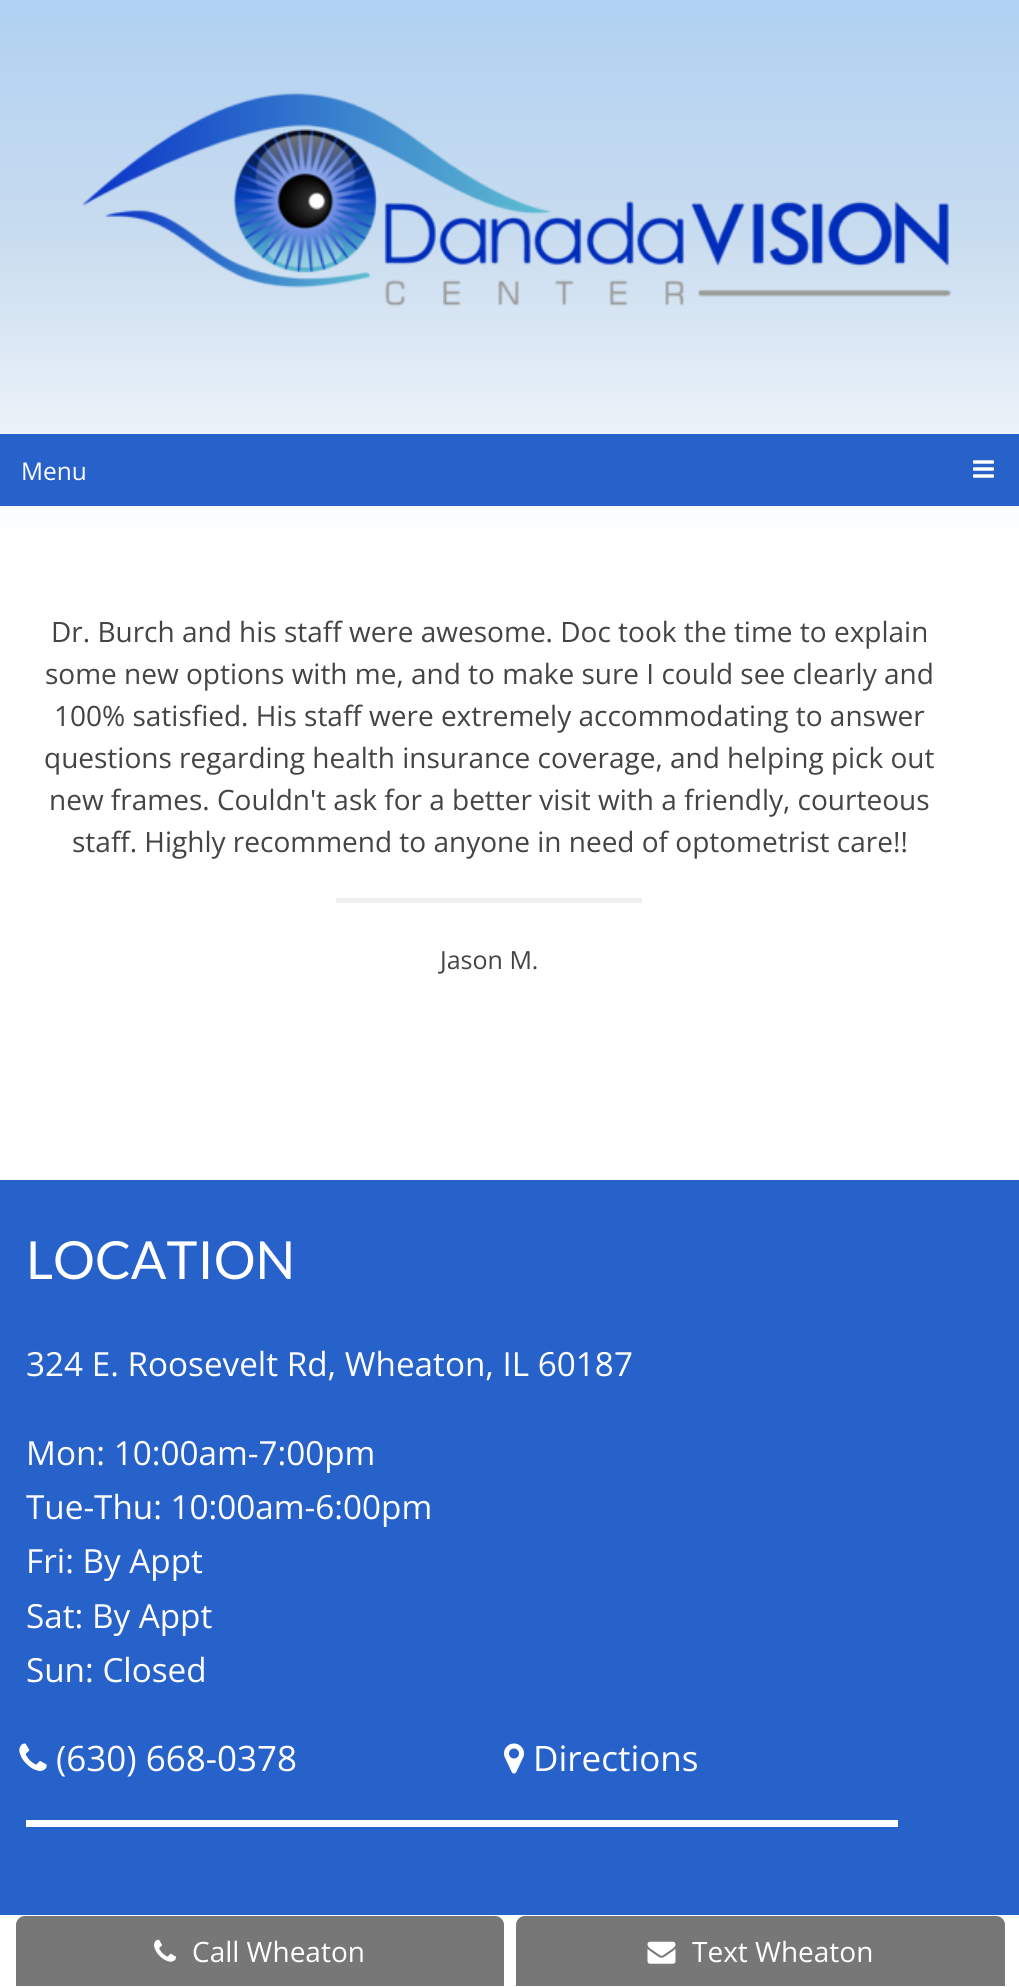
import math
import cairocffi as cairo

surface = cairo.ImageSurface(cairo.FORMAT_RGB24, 1019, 1987)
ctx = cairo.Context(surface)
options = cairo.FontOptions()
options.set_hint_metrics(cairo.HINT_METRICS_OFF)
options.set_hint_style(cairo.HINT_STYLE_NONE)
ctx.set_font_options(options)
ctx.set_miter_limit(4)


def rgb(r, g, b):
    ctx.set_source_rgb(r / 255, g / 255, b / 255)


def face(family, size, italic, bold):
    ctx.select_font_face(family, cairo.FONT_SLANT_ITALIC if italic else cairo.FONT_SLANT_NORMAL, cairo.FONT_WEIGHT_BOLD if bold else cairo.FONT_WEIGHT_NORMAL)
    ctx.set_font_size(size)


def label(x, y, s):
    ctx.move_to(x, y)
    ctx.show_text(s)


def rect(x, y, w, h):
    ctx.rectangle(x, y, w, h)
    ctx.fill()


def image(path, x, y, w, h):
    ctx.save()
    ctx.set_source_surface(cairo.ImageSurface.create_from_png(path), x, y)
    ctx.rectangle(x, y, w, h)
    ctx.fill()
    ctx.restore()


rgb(255, 255, 255)
ctx.paint()
gradient = cairo.LinearGradient(510, 0, 510, 541)
gradient.add_color_stop_rgba(0, 0.69, 0.82, 0.949, 1)
gradient.add_color_stop_rgba(0.44, 0.788, 0.863, 0.937, 1)
gradient.add_color_stop_rgba(1, 1, 1, 1, 1)
ctx.set_source(gradient)
rect(0, 0, 1019, 527)
image('image0.png', 82, 92, 870, 215)
rgb(39, 98, 203)
rect(0, 434, 1019, 72)
face('Open Sans', 24.5, 0, 0)
rgb(255, 255, 255)
label(21, 480, 'Menu')
image('image1.png', 973, 460, 21, 18)
face('Open Sans', 28, 0, 0)
rgb(68, 68, 68)
label(51, 642, 'Dr. Burch and his staff were awesome. Doc took the time to explain')
label(45, 684, 'some new options with me, and to make sure I could see clearly and')
label(54, 726, '100% satisfied. His staff were extremely accommodating to answer')
label(44, 768, 'questions regarding health insurance coverage, and helping pick out')
label(49, 810, 'new frames. Couldn\'t ask for a better visit with a friendly, courteous')
label(72, 852, 'staff. Highly recommend to anyone in need of optometrist care!!')
rgb(239, 239, 239)
rect(336, 898, 306, 5)
face('Open Sans', 25, 0, 0)
rgb(68, 68, 68)
label(440, 969, 'Jason M.')
rgb(39, 98, 203)
rect(0, 1180, 1019, 735)
face('Lato', 52.5, 0, 0)
rgb(255, 255, 255)
label(26, 1279, 'LOCATION')
face('Open Sans', 33.25, 0, 0)
label(26, 1376, '324 E. Roosevelt Rd, Wheaton, IL 60187')
label(26, 1465, 'Mon: 10:00am-7:00pm')
label(26, 1519, 'Tue-Thu: 10:00am-6:00pm')
label(26, 1573, 'Fri: By Appt')
label(26, 1628, 'Sat: By Appt')
label(26, 1682, 'Sun: Closed')
image('image2.png', 19, 1743, 28, 28)
face('Open Sans', 35, 0, 0)
label(56, 1771, '(630) 668-0378')
image('image3.png', 504, 1743, 20, 31)
label(533, 1771, 'Directions')
rect(26, 1820, 872, 7)
rgb(119, 119, 119)
ctx.new_path()
ctx.move_to(25, 1916)
ctx.line_to(495, 1916)
ctx.curve_to(500, 1916, 504, 1920, 504, 1925)
ctx.line_to(504, 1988)
ctx.line_to(16, 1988)
ctx.line_to(16, 1925)
ctx.curve_to(16, 1920, 20, 1916, 25, 1916)
ctx.close_path()
ctx.fill()
rgb(255, 255, 255)
rect(16, 1986, 488, 1)
image('image4.png', 154, 1939, 22, 23)
face('Open Sans', 28, 0, 0)
label(192, 1962, 'Call Wheaton')
rgb(119, 119, 119)
ctx.new_path()
ctx.move_to(525, 1916)
ctx.line_to(996, 1916)
ctx.curve_to(1001, 1916, 1005, 1920, 1005, 1925)
ctx.line_to(1005, 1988)
ctx.line_to(516, 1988)
ctx.line_to(516, 1925)
ctx.curve_to(516, 1920, 520, 1916, 525, 1916)
ctx.close_path()
ctx.fill()
rgb(255, 255, 255)
rect(516, 1986, 489, 1)
image('image5.png', 647, 1941, 29, 23)
label(692, 1962, 'Text Wheaton')
surface.write_to_png('render.png')
